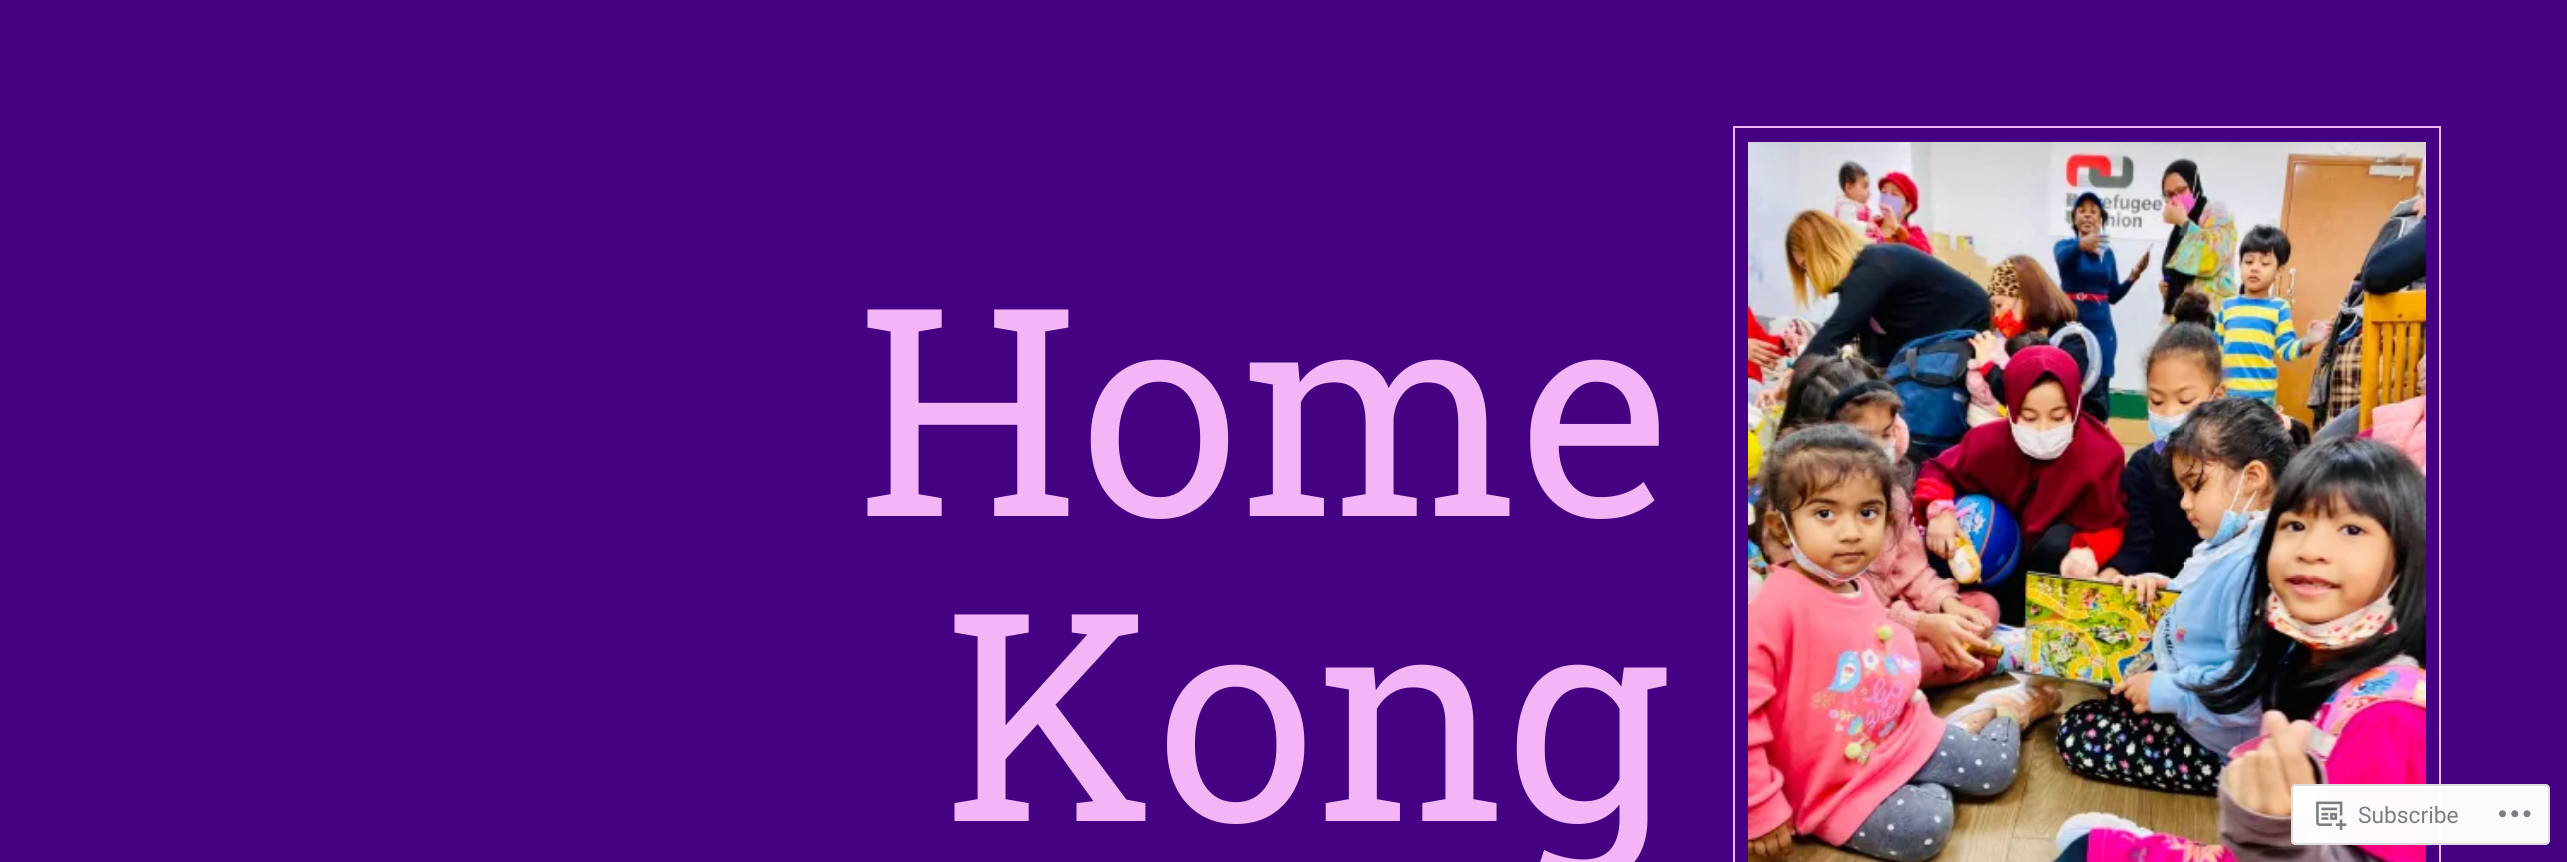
import math
import cairocffi as cairo

surface = cairo.ImageSurface(cairo.FORMAT_RGB24, 2567, 862)
ctx = cairo.Context(surface)
options = cairo.FontOptions()
options.set_hint_metrics(cairo.HINT_METRICS_OFF)
options.set_hint_style(cairo.HINT_STYLE_NONE)
ctx.set_font_options(options)
ctx.set_miter_limit(4)


def rgb(r, g, b):
    ctx.set_source_rgb(r / 255, g / 255, b / 255)


def face(family, size, italic, bold):
    ctx.select_font_face(family, cairo.FONT_SLANT_ITALIC if italic else cairo.FONT_SLANT_NORMAL, cairo.FONT_WEIGHT_BOLD if bold else cairo.FONT_WEIGHT_NORMAL)
    ctx.set_font_size(size)


def label(x, y, s):
    ctx.move_to(x, y)
    ctx.show_text(s)


def rrect(x, y, w, h, r):
    ctx.new_sub_path()
    for i, (u, v) in enumerate([(x + w - r, y + h - r), (x + r, y + h - r), (x + r, y + r), (x + w - r, y + r)]):
        ctx.arc(u, v, r, i * math.pi / 2, (i + 1) * math.pi / 2)
    ctx.close_path()


def image(path, x, y, w, h):
    ctx.save()
    ctx.set_source_surface(cairo.ImageSurface.create_from_png(path), x, y)
    ctx.rectangle(x, y, w, h)
    ctx.fill()
    ctx.restore()


rgb(68, 2, 131)
ctx.paint()
face('Roboto Slab', 290.5, 0, 0)
rgb(243, 181, 246)
label(856, 516, 'Home')
label(943, 821, 'Kong')
ctx.rectangle(1734, 127, 706, 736)
ctx.stroke()
image('image0.png', 1748, 142, 678, 720)
ctx.set_source_rgba(1, 1, 1, 0.98)
rrect(2291, 784, 259, 61, 5)
ctx.fill()
rrect(2292, 785, 257, 59, 4)
ctx.set_source_rgba(0.863, 0.863, 0.871, 0.98)
ctx.stroke()
image('image1.png', 2316, 801, 31, 29)
face('Roboto', 22.75, 0, 0)
rgb(123, 127, 132)
label(2358, 823, 'Subscribe')
image('image2.png', 2499, 810, 32, 8)
surface.write_to_png('render.png')
